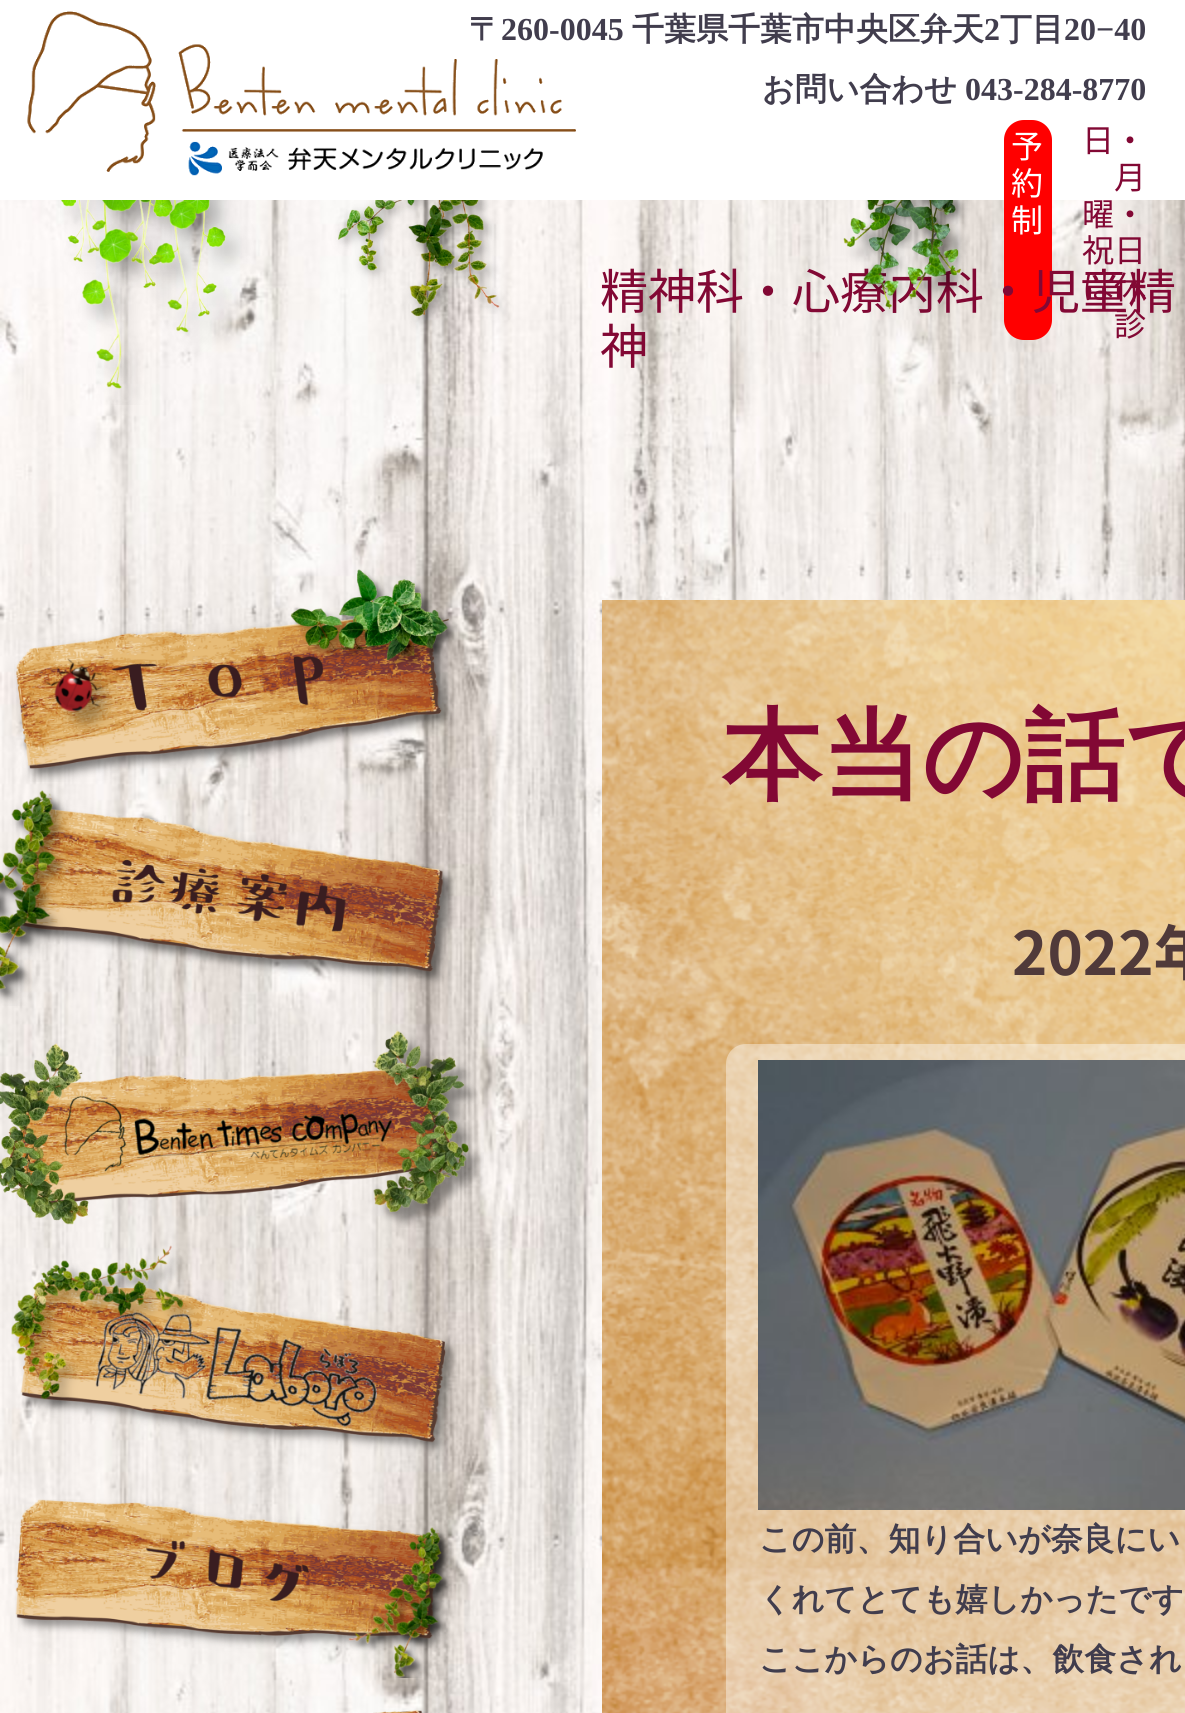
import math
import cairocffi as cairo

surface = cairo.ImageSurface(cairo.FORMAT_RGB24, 1185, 1713)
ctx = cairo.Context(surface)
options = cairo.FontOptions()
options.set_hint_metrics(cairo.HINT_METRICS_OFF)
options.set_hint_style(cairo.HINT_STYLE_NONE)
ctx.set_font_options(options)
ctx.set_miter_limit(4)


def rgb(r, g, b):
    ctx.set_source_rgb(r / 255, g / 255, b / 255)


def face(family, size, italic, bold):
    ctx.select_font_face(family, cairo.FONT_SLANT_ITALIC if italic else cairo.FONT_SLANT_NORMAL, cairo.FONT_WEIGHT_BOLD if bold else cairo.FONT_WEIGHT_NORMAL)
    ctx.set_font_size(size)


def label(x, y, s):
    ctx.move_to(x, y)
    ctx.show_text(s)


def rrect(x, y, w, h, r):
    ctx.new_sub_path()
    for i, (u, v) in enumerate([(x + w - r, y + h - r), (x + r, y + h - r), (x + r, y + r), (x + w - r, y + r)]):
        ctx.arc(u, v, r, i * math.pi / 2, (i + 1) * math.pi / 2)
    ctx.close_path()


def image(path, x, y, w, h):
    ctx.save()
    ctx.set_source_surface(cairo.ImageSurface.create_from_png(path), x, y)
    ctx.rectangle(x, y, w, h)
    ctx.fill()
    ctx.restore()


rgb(255, 255, 255)
ctx.paint()
image('image0.png', 0, 200, 1185, 1513)
face('WenQuanYi Zen Hei', 32, 0, 1)
rgb(65, 61, 77)
label(469, 40, '〒')
face('Liberation Serif', 32, 0, 1)
label(501, 40, '260-0045')
face('WenQuanYi Zen Hei', 32, 0, 1)
label(632, 40, '千葉県千葉市中央区弁天')
face('Liberation Serif', 32, 0, 1)
label(984, 40, '2')
face('WenQuanYi Zen Hei', 32, 0, 1)
label(1000, 40, '丁目')
face('Liberation Serif', 32, 0, 1)
label(1064, 40, '20−40')
face('WenQuanYi Zen Hei', 32, 0, 1)
label(762, 100, 'お問い合わせ')
face('Liberation Serif', 32, 0, 1)
label(965, 100, '043-284-8770')
rgb(255, 0, 0)
rrect(1004, 120, 48, 220, 20)
ctx.fill()
face('Noto Sans JP', 32, 0, 0)
rgb(255, 255, 255)
label(1011, 158, '予')
label(1011, 195, '約')
label(1011, 232, '制')
rgb(130, 8, 52)
label(1082, 152, '日・')
label(1114, 189, '月')
label(1082, 226, '曜・')
label(1082, 262, '祝日')
label(1082, 299, 'は休')
label(1114, 336, '診')
image('image1.png', 27, 11, 549, 165)
face('Noto Sans JP', 48, 0, 0)
label(600, 309, '精神科・心療内科・児童精')
label(600, 364, '神')
image('image2.png', 60, 200, 910, 205)
image('image3.png', 14, 569, 443, 213)
image('image4.png', 0, 790, 457, 216)
image('image5.png', 0, 1030, 484, 198)
image('image6.png', 11, 1245, 446, 209)
image('image7.png', 15, 1499, 439, 179)
image('image8.png', 373, 1709, 53, 4)
image('image9.png', 602, 600, 583, 1113)
face('WenQuanYi Zen Hei', 100, 0, 1)
label(722, 790, '本当の話で')
face('Noto Sans JP', 60, 0, 1)
rgb(80, 58, 58)
label(1012, 975, '2022年')
ctx.set_source_rgba(1, 1, 1, 0.4)
rrect(726, 1044, 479, 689, 20)
ctx.fill()
image('image10.png', 758, 1060, 427, 450)
face('WenQuanYi Zen Hei', 32, 0, 1)
rgb(65, 61, 77)
label(759, 1550, 'この前、知り合いが奈良にい')
label(759, 1610, 'くれてとても嬉しかったです')
label(759, 1670, 'ここからのお話は、飲食され')
surface.write_to_png('render.png')
